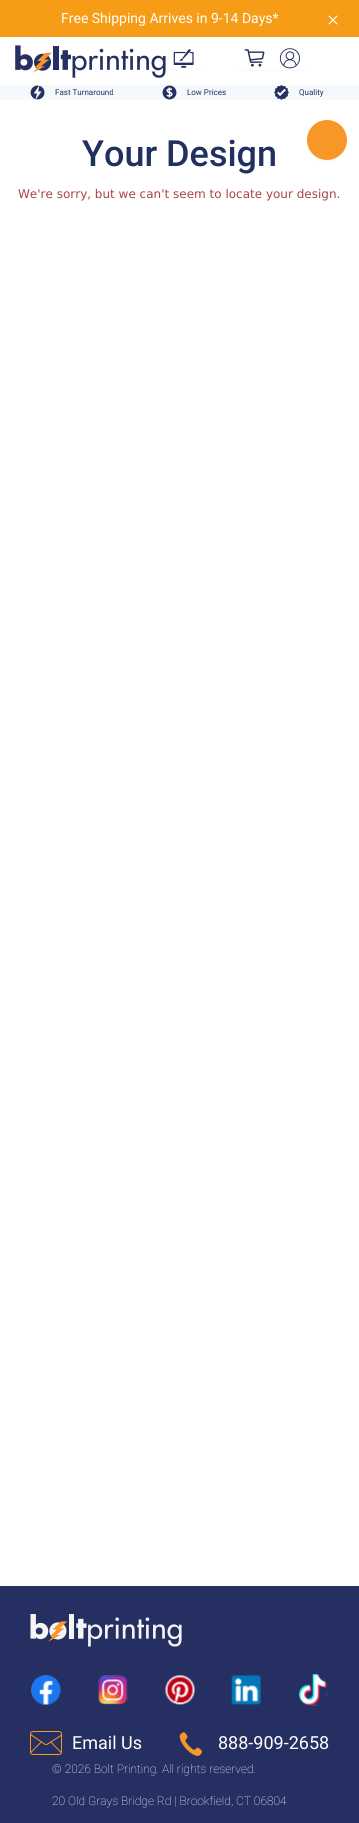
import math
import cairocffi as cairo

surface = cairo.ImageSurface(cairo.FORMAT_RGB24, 359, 1823)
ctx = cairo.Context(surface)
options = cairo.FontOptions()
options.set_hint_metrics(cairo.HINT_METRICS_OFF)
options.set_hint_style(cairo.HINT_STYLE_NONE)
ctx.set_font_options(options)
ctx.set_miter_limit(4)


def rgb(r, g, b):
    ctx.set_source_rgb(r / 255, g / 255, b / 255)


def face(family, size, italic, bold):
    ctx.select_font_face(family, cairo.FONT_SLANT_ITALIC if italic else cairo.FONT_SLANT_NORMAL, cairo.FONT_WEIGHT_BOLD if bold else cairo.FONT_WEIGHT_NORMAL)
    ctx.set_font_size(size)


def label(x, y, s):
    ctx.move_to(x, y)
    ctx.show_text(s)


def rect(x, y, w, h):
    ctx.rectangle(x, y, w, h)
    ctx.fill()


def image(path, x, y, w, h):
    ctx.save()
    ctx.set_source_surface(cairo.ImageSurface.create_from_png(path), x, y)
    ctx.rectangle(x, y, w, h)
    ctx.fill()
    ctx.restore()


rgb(255, 255, 255)
ctx.paint()
rgb(247, 156, 23)
rect(0, 0, 359, 37)
face('Roboto', 14, 0, 0)
rgb(255, 255, 255)
label(61, 23, 'Free Shipping Arrives in 9-14 Days*')
image('image0.png', 328, 15, 10, 10)
image('image1.png', 15, 45, 151, 33)
rgb(251, 251, 251)
ctx.new_path()
ctx.move_to(166, 67)
ctx.curve_to(166, 72.5, 167.5, 71, 173, 71)
ctx.line_to(194, 71)
ctx.curve_to(199.5, 71, 201, 72.5, 201, 67)
ctx.curve_to(201, 68, 200, 69, 199, 69)
ctx.line_to(168, 69)
ctx.curve_to(167, 69, 166, 68, 166, 67)
ctx.close_path()
ctx.fill()
image('image2.png', 173, 49, 21, 19)
ctx.new_path()
ctx.move_to(237, 67)
ctx.curve_to(237, 72.5, 238.5, 71, 244, 71)
ctx.line_to(265, 71)
ctx.curve_to(270.5, 71, 272, 72.5, 272, 67)
ctx.curve_to(272, 68, 271, 69, 270, 69)
ctx.line_to(239, 69)
ctx.curve_to(238, 69, 237, 68, 237, 67)
ctx.close_path()
ctx.fill()
image('image3.png', 244, 49, 21, 18)
ctx.new_path()
ctx.move_to(272, 67)
ctx.curve_to(272, 72.5, 274, 71, 279.5, 71)
ctx.line_to(300.5, 71)
ctx.curve_to(306, 71, 308, 72.5, 308, 67)
ctx.curve_to(308, 68, 307, 69, 306, 69)
ctx.line_to(274, 69)
ctx.curve_to(273, 69, 272, 68, 272, 67)
ctx.close_path()
ctx.fill()
image('image4.png', 279, 48, 21, 21)
rgb(245, 249, 252)
rect(0, 85, 359, 15)
image('image5.png', 30, 85, 15, 15)
face('Roboto', 8, 0, 0)
rgb(33, 47, 97)
label(55, 95, 'Fast Turnaround')
image('image6.png', 162, 85, 15, 15)
label(187, 95, 'Low Prices')
image('image7.png', 274, 85, 15, 15)
label(299, 95, 'Quality')
rgb(251, 251, 251)
ctx.new_path()
ctx.move_to(307, 141)
ctx.curve_to(306, 169, 348, 169, 347, 141)
ctx.curve_to(346, 166, 308, 166, 307, 141)
ctx.close_path()
ctx.fill()
rgb(248, 151, 40)
ctx.arc(327, 140, 20, 0, 2 * math.pi)
ctx.fill()
face('Roboto Medium', 36, 0, 0)
rgb(33, 47, 97)
label(82, 166, 'Your Design')
face('DejaVu Sans', 12, 0, 0)
rgb(169, 68, 66)
label(18, 198, 'We\'re sorry, but we can\'t seem to locate your design.')
rgb(38, 47, 97)
rect(0, 1586, 359, 237)
image('image8.png', 30, 1614, 152, 33)
image('image9.png', 31, 1675, 30, 30)
image('image10.png', 98, 1675, 30, 30)
image('image11.png', 165, 1675, 30, 30)
image('image12.png', 231, 1675, 30, 30)
image('image13.png', 299, 1674, 28, 32)
image('image14.png', 30, 1731, 32, 24)
face('Roboto', 18, 0, 0)
rgb(255, 255, 255)
label(72, 1749, 'Email Us')
image('image15.png', 179, 1732, 23, 24)
label(218, 1749, '888-909-2658')
face('Roboto Thin', 12, 0, 0)
label(52, 1773, '© 2026 Bolt Printing. All rights reserved.')
label(52, 1805, '20 Old Grays Bridge Rd | Brookfield, CT 06804')
surface.write_to_png('render.png')
